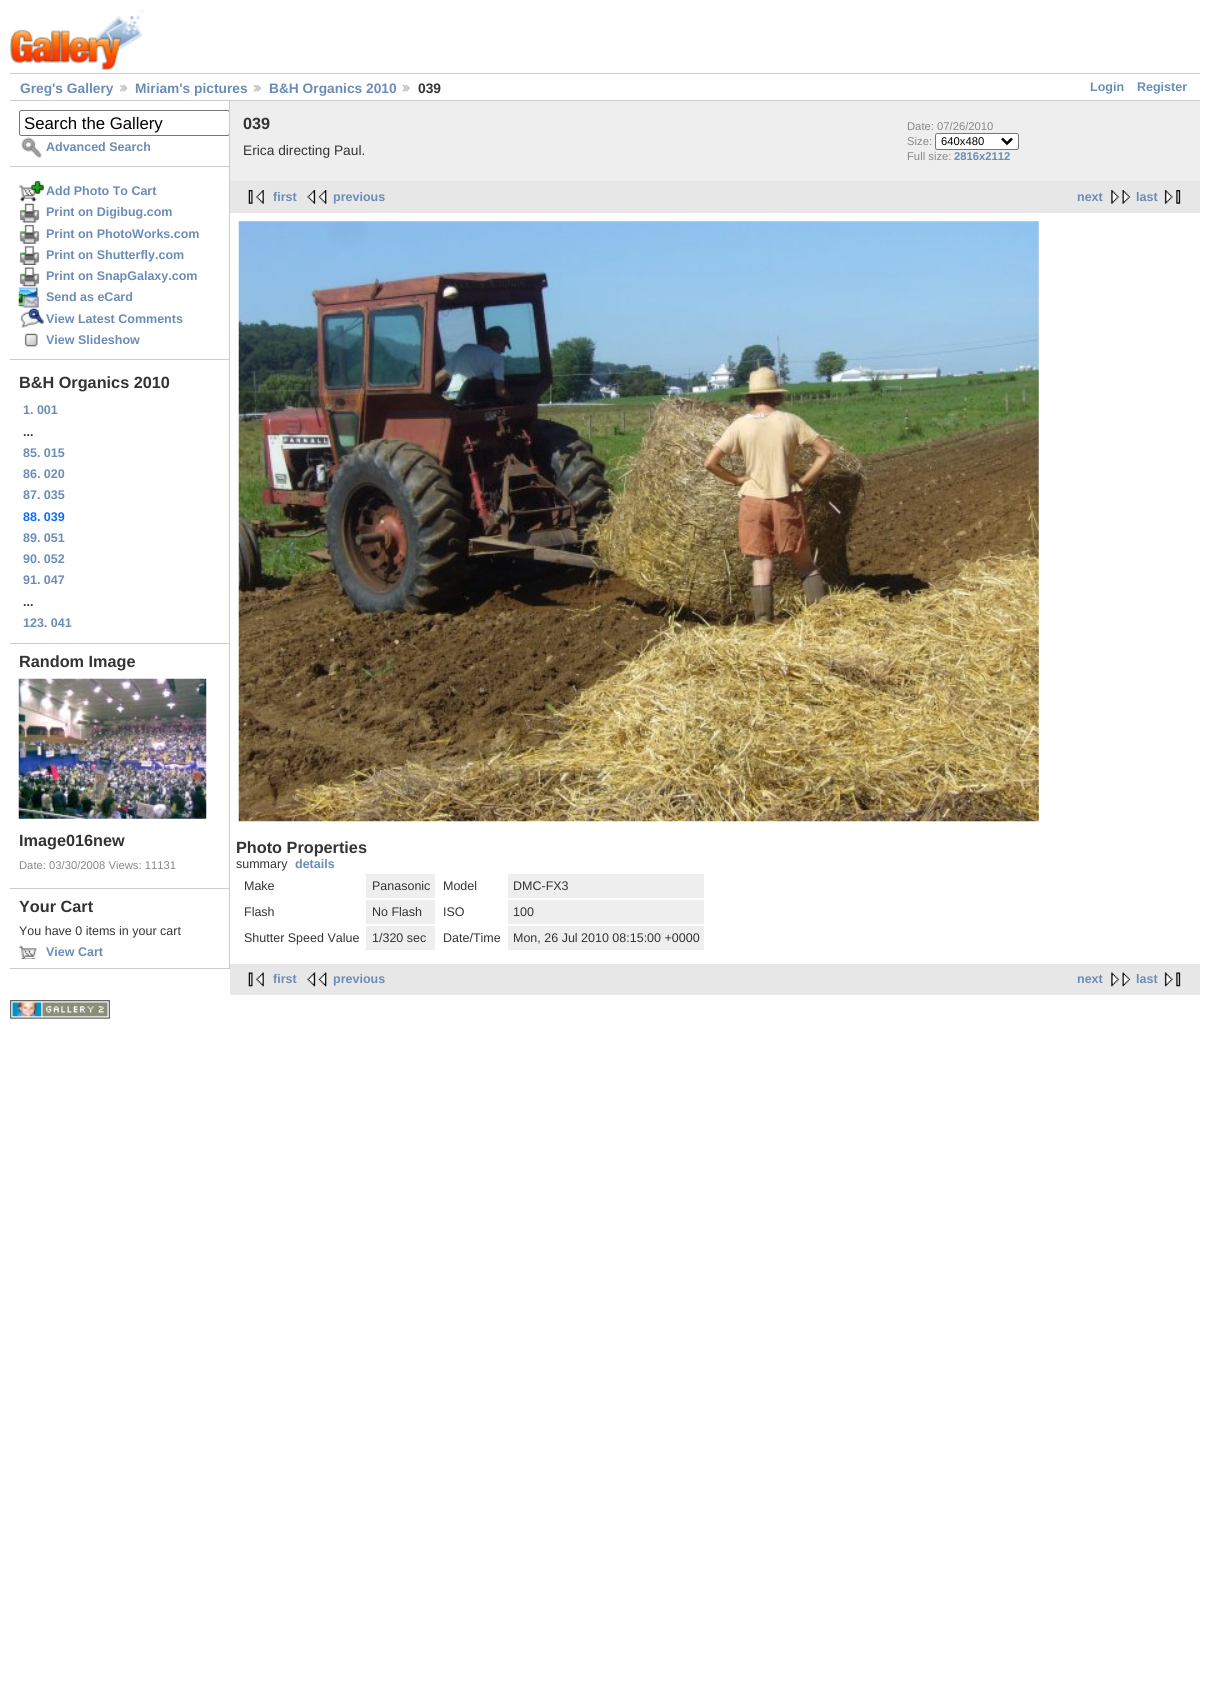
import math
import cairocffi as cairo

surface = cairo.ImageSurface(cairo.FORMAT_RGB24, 1209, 1708)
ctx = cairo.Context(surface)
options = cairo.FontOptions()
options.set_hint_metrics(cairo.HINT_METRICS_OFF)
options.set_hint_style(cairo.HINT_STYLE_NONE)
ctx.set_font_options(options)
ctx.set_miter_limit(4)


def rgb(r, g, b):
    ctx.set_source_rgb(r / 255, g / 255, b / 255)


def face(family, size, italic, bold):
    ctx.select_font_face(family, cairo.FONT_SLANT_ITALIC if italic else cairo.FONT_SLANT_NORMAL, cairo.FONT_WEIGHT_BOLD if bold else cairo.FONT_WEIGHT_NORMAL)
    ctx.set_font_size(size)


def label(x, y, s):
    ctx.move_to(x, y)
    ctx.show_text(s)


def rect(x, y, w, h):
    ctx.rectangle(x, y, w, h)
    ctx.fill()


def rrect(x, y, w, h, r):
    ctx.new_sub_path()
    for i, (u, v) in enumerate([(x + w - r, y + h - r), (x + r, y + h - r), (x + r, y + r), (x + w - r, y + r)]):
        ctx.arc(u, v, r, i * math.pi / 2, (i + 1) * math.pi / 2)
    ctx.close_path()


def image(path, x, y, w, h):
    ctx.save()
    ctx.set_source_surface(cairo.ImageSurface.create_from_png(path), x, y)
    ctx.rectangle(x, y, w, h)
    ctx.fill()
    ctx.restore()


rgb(255, 255, 255)
ctx.paint()
image('image0.png', 10, 10, 134, 60)
rgb(204, 204, 204)
rect(10, 73, 1190, 1)
rect(10, 100, 1190, 1)
face('Liberation Sans', 13.75, 0, 1)
rgb(107, 140, 183)
label(20, 93, 'Greg\'s Gallery')
image('image1.png', 120, 84, 8, 8)
label(135, 93, 'Miriam\'s pictures')
image('image2.png', 253, 85, 9, 7)
label(269, 93, 'B&H Organics 2010')
image('image3.png', 402, 85, 8, 7)
rgb(51, 51, 51)
label(418, 93, '039')
face('Liberation Sans', 12.5, 0, 1)
rgb(107, 140, 183)
label(1090, 91, 'Login')
label(1137, 91, 'Register')
rgb(204, 204, 204)
rect(229, 101, 1, 868)
rect(10, 166, 219, 1)
ctx.save()
ctx.rectangle(10, 101, 219, 868)
ctx.clip()
rrect(19.5, 110.5, 210, 25, 2)
rgb(118, 118, 118)
ctx.set_line_width(1)
ctx.stroke()
ctx.restore()
face('Liberation Sans', 16.75, 0, 0)
rgb(0, 0, 0)
label(24, 129, 'Search the Gallery')
image('image4.png', 21, 137, 21, 21)
face('Liberation Sans', 12.5, 0, 1)
rgb(107, 140, 183)
label(46, 151, 'Advanced Search')
rgb(204, 204, 204)
rect(10, 359, 219, 1)
image('image5.png', 18, 181, 26, 21)
rgb(107, 140, 183)
label(46, 195, 'Add Photo To Cart')
image('image6.png', 19, 203, 21, 20)
label(46, 216, 'Print on Digibug.com')
image('image7.png', 19, 224, 21, 20)
label(46, 238, 'Print on PhotoWorks.com')
image('image8.png', 19, 246, 21, 19)
label(46, 259, 'Print on Shutterfly.com')
image('image9.png', 19, 267, 21, 20)
label(46, 280, 'Print on SnapGalaxy.com')
image('image10.png', 18, 287, 21, 21)
label(46, 301, 'Send as eCard')
image('image11.png', 20, 308, 24, 20)
label(46, 323, 'View Latest Comments')
image('image12.png', 24, 333, 14, 14)
label(46, 344, 'View Slideshow')
rgb(204, 204, 204)
rect(10, 643, 219, 1)
face('Liberation Sans', 16.25, 0, 1)
rgb(51, 51, 51)
label(19, 388, 'B&H Organics 2010')
face('Liberation Sans', 12.5, 0, 1)
rgb(107, 140, 183)
label(23, 414, '1. 001')
rgb(51, 51, 51)
label(23, 436, '...')
rgb(107, 140, 183)
label(23, 457, '85. 015')
label(23, 478, '86. 020')
label(23, 499, '87. 035')
rgb(11, 108, 255)
label(23, 521, '88. 039')
rgb(107, 140, 183)
label(23, 542, '89. 051')
label(23, 563, '90. 052')
label(23, 584, '91. 047')
rgb(51, 51, 51)
label(23, 606, '...')
rgb(107, 140, 183)
label(23, 627, '123. 041')
rgb(204, 204, 204)
rect(10, 888, 219, 1)
face('Liberation Sans', 16.25, 0, 1)
rgb(51, 51, 51)
label(19, 667, 'Random Image')
image('image13.png', 18, 678, 189, 141)
label(19, 846, 'Image016new')
face('Liberation Sans', 11.25, 0, 0)
rgb(136, 136, 136)
label(19, 869, 'Date: 03/30/2008 Views: 11131')
rgb(204, 204, 204)
rect(10, 968, 219, 1)
face('Liberation Sans', 16.25, 0, 1)
rgb(51, 51, 51)
label(19, 912, 'Your Cart')
face('Liberation Sans', 12.5, 0, 0)
label(19, 935, 'You have 0 items in your cart')
image('image14.png', 18, 945, 19, 14)
face('Liberation Sans', 12.5, 0, 1)
rgb(107, 140, 183)
label(46, 956, 'View Cart')
rgb(238, 238, 238)
rect(230, 101, 970, 80)
face('Liberation Sans', 16.25, 0, 1)
rgb(51, 51, 51)
label(243, 129, '039')
face('Liberation Sans', 13.75, 0, 0)
label(243, 155, 'Erica directing Paul.')
face('Liberation Sans', 11.25, 0, 0)
rgb(136, 136, 136)
label(907, 130, 'Date: 07/26/2010')
label(907, 145, 'Size:')
rgb(255, 255, 255)
rrect(935.5, 133.5, 83, 16, 2)
ctx.fill_preserve()
rgb(118, 118, 118)
ctx.set_line_width(1)
ctx.stroke()
ctx.new_path()
ctx.move_to(1002, 138.5)
ctx.line_to(1007, 143.5)
ctx.line_to(1012, 138.5)
rgb(0, 0, 0)
ctx.set_line_width(2.5)
ctx.stroke()
label(941, 145, '640x480')
rgb(136, 136, 136)
label(907, 160, 'Full size:')
face('Liberation Sans', 11.25, 0, 1)
rgb(107, 140, 183)
label(954, 160, '2816x2112')
rgb(231, 231, 231)
rect(230, 181, 970, 32)
image('image15.png', 248, 190, 16, 14)
face('Liberation Sans', 12.5, 0, 1)
rgb(107, 140, 183)
label(273, 201, 'first')
image('image16.png', 307, 190, 20, 14)
label(333, 201, 'previous')
label(1077, 201, 'next')
image('image17.png', 1111, 190, 20, 14)
label(1136, 201, 'last')
image('image18.png', 1164, 190, 17, 14)
image('image19.png', 238, 221, 801, 601)
face('Liberation Sans', 16.25, 0, 1)
rgb(51, 51, 51)
label(236, 853, 'Photo Properties')
face('Liberation Sans', 12.5, 0, 0)
label(236, 868, 'summary')
face('Liberation Sans', 12.5, 0, 1)
rgb(107, 140, 183)
label(295, 868, 'details')
face('Liberation Sans', 12.5, 0, 0)
rgb(51, 51, 51)
label(244, 890, 'Make')
rgb(238, 238, 238)
rect(366, 874, 69, 24)
rgb(51, 51, 51)
label(372, 890, 'Panasonic')
label(443, 890, 'Model')
rgb(238, 238, 238)
rect(508, 874, 196, 24)
rgb(51, 51, 51)
label(513, 890, 'DMC-FX3')
label(244, 916, 'Flash')
rgb(238, 238, 238)
rect(366, 900, 69, 24)
rgb(51, 51, 51)
label(372, 916, 'No Flash')
label(443, 916, 'ISO')
rgb(238, 238, 238)
rect(508, 900, 196, 24)
rgb(51, 51, 51)
label(513, 916, '100')
label(244, 942, 'Shutter Speed Value')
rgb(238, 238, 238)
rect(366, 926, 69, 24)
rgb(51, 51, 51)
label(372, 942, '1/320 sec')
label(443, 942, 'Date/Time')
rgb(238, 238, 238)
rect(508, 926, 196, 24)
rgb(51, 51, 51)
label(513, 942, 'Mon, 26 Jul 2010 08:15:00 +0000')
rgb(231, 231, 231)
rect(230, 964, 970, 31)
image('image20.png', 248, 972, 16, 15)
face('Liberation Sans', 12.5, 0, 1)
rgb(107, 140, 183)
label(273, 983, 'first')
image('image21.png', 307, 972, 20, 15)
label(333, 983, 'previous')
label(1077, 983, 'next')
image('image22.png', 1111, 972, 20, 15)
label(1136, 983, 'last')
image('image23.png', 1164, 972, 17, 15)
image('image24.png', 10, 1000, 100, 19)
surface.write_to_png('render.png')
